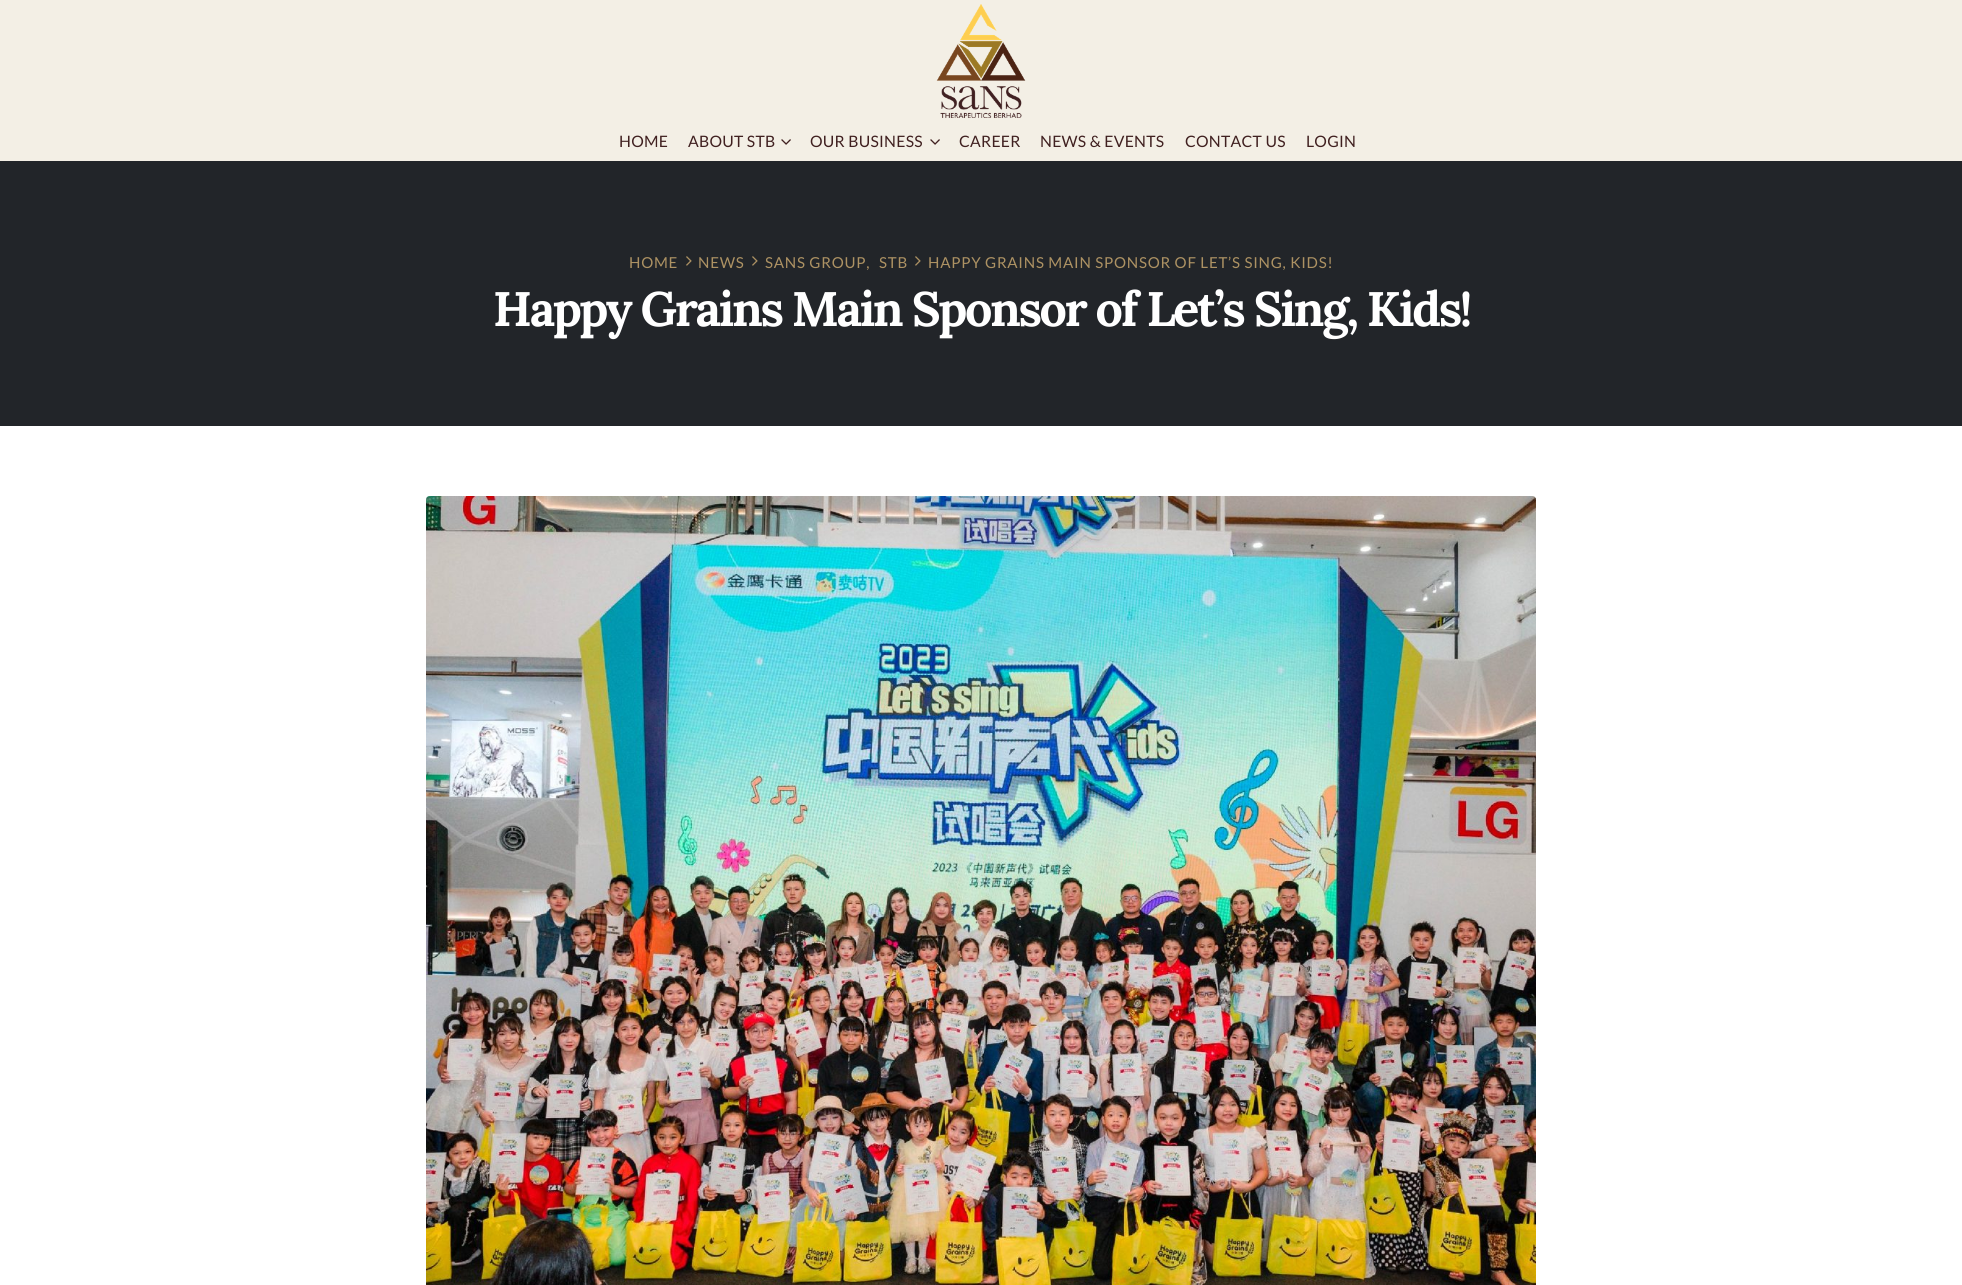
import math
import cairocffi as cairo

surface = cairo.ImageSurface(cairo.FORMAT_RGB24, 1962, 1285)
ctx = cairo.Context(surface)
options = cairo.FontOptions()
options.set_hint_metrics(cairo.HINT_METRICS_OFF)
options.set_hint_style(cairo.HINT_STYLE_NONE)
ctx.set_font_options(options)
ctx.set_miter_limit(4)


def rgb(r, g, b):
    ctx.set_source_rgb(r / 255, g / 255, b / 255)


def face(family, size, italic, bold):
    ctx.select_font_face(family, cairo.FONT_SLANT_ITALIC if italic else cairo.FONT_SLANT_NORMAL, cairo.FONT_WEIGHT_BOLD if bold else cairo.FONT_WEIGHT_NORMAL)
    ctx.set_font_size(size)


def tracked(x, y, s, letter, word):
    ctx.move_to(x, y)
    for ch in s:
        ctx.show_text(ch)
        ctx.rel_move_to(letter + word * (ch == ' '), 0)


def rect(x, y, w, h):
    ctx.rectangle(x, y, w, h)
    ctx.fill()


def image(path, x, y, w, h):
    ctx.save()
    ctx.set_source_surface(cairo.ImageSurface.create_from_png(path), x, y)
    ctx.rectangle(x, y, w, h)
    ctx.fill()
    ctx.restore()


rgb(255, 255, 255)
ctx.paint()
rgb(243, 239, 229)
rect(0, 0, 1962, 161)
image('image0.png', 936, 4, 90, 114)
face('Lato', 15.75, 0, 0)
rgb(64, 32, 32)
tracked(619, 147, 'HOME', 0.25, 0)
tracked(688, 147, 'ABOUT STB', 0.25, 0)
image('image1.png', 781, 139, 10, 6)
tracked(810, 147, 'OUR BUSINESS', 0.25, 0)
image('image1.png', 930, 139, 10, 6)
tracked(959, 147, 'CAREER', 0.25, 0)
tracked(1040, 147, 'NEWS & EVENTS', 0.25, 0)
tracked(1185, 147, 'CONTACT US', 0.25, 0)
tracked(1306, 147, 'LOGIN', 0.25, 0)
rgb(34, 37, 41)
rect(0, 161, 1962, 265)
face('Lato', 15.1, 0, 0)
rgb(173, 146, 99)
tracked(629, 268, 'HOME', 0.75, 0)
image('image2.png', 686, 256, 6, 10)
tracked(698, 268, 'NEWS', 0.75, 0)
image('image2.png', 752, 256, 6, 10)
tracked(765, 268, 'SANS GROUP,', 0.75, 0)
tracked(879, 268, 'STB', 0.75, 0)
image('image2.png', 915, 256, 6, 10)
tracked(928, 268, 'HAPPY GRAINS MAIN SPONSOR OF LET’S SING, KIDS!', 0.75, 0)
face('Lora', 48.4, 0, 1)
rgb(255, 255, 255)
tracked(493, 326, 'Happy Grains Main Sponsor of Let’s Sing, Kids!', -2.4, 0)
image('image3.png', 426, 496, 1110, 789)
surface.write_to_png('render.png')
